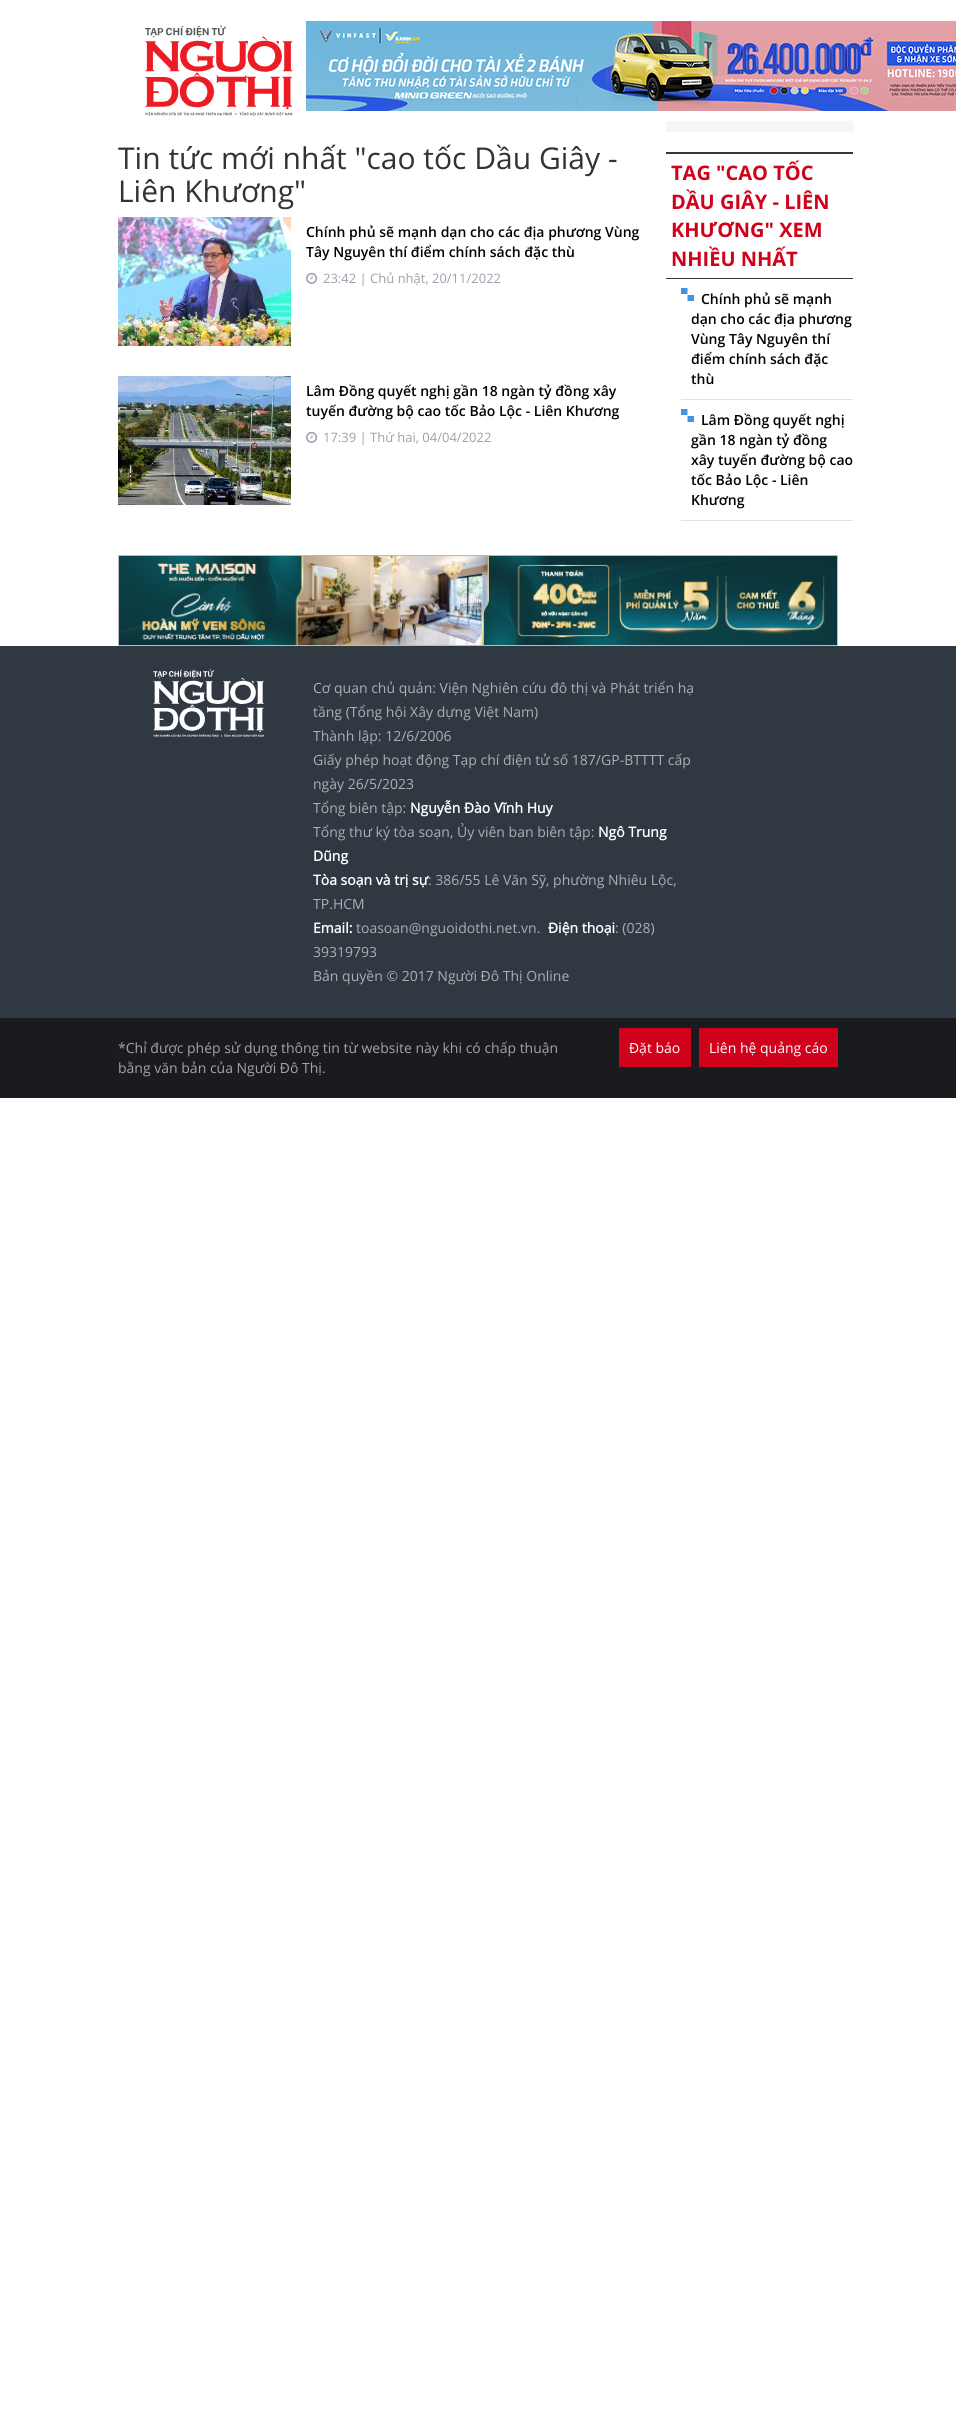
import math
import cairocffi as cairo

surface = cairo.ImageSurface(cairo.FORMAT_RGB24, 956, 2409)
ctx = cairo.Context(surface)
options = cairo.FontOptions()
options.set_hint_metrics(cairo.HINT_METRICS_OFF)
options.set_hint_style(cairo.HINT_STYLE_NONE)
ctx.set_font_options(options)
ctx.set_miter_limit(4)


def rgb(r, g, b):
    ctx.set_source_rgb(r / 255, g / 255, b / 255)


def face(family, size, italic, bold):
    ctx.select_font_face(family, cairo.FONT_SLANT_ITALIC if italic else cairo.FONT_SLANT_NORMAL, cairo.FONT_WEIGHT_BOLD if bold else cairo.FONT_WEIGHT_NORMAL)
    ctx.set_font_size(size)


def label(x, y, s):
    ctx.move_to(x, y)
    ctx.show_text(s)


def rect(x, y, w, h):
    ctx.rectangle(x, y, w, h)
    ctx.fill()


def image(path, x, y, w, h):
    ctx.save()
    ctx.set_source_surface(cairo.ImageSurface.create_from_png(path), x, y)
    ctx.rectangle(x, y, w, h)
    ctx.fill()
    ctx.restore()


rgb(255, 255, 255)
ctx.paint()
image('image0.png', 145, 25, 148, 91)
image('image1.png', 306, 21, 650, 90)
face('Open Sans', 30, 0, 0)
rgb(51, 51, 51)
label(118, 169, 'Tin tức mới nhất "cao tốc Dầu Giây -')
label(118, 202, 'Liên Khương"')
image('image2.png', 118, 217, 173, 129)
face('Open Sans SemiBold', 14, 0, 0)
rgb(0, 0, 0)
label(306, 237, 'Chính phủ sẽ mạnh dạn cho các địa phương Vùng')
label(306, 257, 'Tây Nguyên thí điểm chính sách đặc thù')
image('image3.png', 306, 272, 12, 12)
face('Open Sans', 13, 0, 0)
rgb(157, 161, 171)
label(323, 283, '23:42 | Chủ nhật, 20/11/2022')
image('image4.png', 118, 376, 173, 129)
face('Open Sans SemiBold', 14, 0, 0)
rgb(0, 0, 0)
label(306, 396, 'Lâm Đồng quyết nghị gần 18 ngàn tỷ đồng xây')
label(306, 416, 'tuyến đường bộ cao tốc Bảo Lộc - Liên Khương')
image('image3.png', 306, 431, 12, 12)
face('Open Sans', 13, 0, 0)
rgb(157, 161, 171)
label(323, 442, '17:39 | Thứ hai, 04/04/2022')
rgb(246, 246, 246)
rect(666, 121, 187, 11)
rgb(48, 56, 66)
rect(666, 152, 187, 2)
rect(666, 278, 187, 1)
face('Open Sans', 20, 0, 1)
rgb(208, 2, 27)
label(671, 180, 'TAG "CAO TỐC')
label(671, 209, 'DẦU GIÂY - LIÊN')
label(671, 237, 'KHƯƠNG" XEM')
label(671, 266, 'NHIỀU NHẤT')
image('image5.png', 681, 288, 13, 13)
rgb(226, 226, 226)
rect(681, 399, 172, 1)
face('Open Sans SemiBold', 14, 0, 0)
rgb(0, 0, 0)
label(701, 304, 'Chính phủ sẽ mạnh')
label(691, 324, 'dạn cho các địa phương')
label(691, 344, 'Vùng Tây Nguyên thí')
label(691, 364, 'điểm chính sách đặc')
label(691, 384, 'thù')
image('image5.png', 681, 409, 13, 13)
rgb(226, 226, 226)
rect(681, 520, 172, 1)
rgb(0, 0, 0)
label(701, 425, 'Lâm Đồng quyết nghị')
label(691, 445, 'gần 18 ngàn tỷ đồng')
label(691, 465, 'xây tuyến đường bộ cao')
label(691, 485, 'tốc Bảo Lộc - Liên')
label(691, 505, 'Khương')
ctx.rectangle(118.5, 555.5, 719, 90)
rgb(183, 187, 196)
ctx.set_line_width(1)
ctx.stroke()
image('image6.png', 119, 556, 718, 89)
rgb(48, 56, 66)
rect(0, 646, 956, 372)
image('image7.png', 153, 669, 111, 69)
face('Open Sans', 14, 0, 0)
rgb(172, 175, 179)
label(313, 693, 'Cơ quan chủ quản: Viện Nghiên cứu đô thị và Phát triển hạ')
label(313, 717, 'tầng (Tổng hội Xây dựng Việt Nam)')
label(313, 741, 'Thành lập: 12/6/2006')
label(313, 765, 'Giấy phép hoạt động Tạp chí điện tử số 187/GP-BTTTT cấp')
label(313, 789, 'ngày 26/5/2023')
label(313, 813, 'Tổng biên tập:')
face('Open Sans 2', 14, 0, 1)
rgb(255, 255, 255)
label(410, 813, 'Nguyễn Đào Vĩnh Huy')
face('Open Sans', 14, 0, 0)
rgb(172, 175, 179)
label(313, 837, 'Tổng thư ký tòa soạn, Ủy viên ban biên tập:')
face('Open Sans 2', 14, 0, 1)
rgb(255, 255, 255)
label(598, 837, 'Ngô Trung')
label(313, 861, 'Dũng')
label(313, 885, 'Tòa soạn và trị sự')
face('Open Sans', 14, 0, 0)
rgb(172, 175, 179)
label(428, 885, ': 386/55 Lê Văn Sỹ, phường Nhiêu Lộc,')
label(313, 909, 'TP.HCM')
face('Open Sans 2', 14, 0, 1)
rgb(255, 255, 255)
label(313, 933, 'Email:')
face('Open Sans', 14, 0, 0)
rgb(172, 175, 179)
label(356, 933, 'toasoan@nguoidothi.net.vn.')
face('Open Sans 2', 14, 0, 1)
rgb(255, 255, 255)
label(548, 933, 'Điện thoại')
face('Open Sans', 14, 0, 0)
rgb(172, 175, 179)
label(615, 933, ': (028)')
label(313, 957, '39319793')
label(313, 981, 'Bản quyền © 2017 Người Đô Thị Online')
rgb(25, 27, 30)
rect(0, 1018, 956, 80)
rgb(163, 164, 165)
label(118, 1053, '*Chỉ được phép sử dụng thông tin từ website này khi có chấp thuận')
label(118, 1073, 'bằng văn bản của Người Đô Thị.')
rgb(208, 2, 27)
rect(619, 1028, 72, 39)
rgb(255, 255, 255)
label(629, 1053, 'Đặt báo')
rgb(208, 2, 27)
rect(699, 1028, 139, 39)
rgb(255, 255, 255)
label(709, 1053, 'Liên hệ quảng cáo')
surface.write_to_png('render.png')
